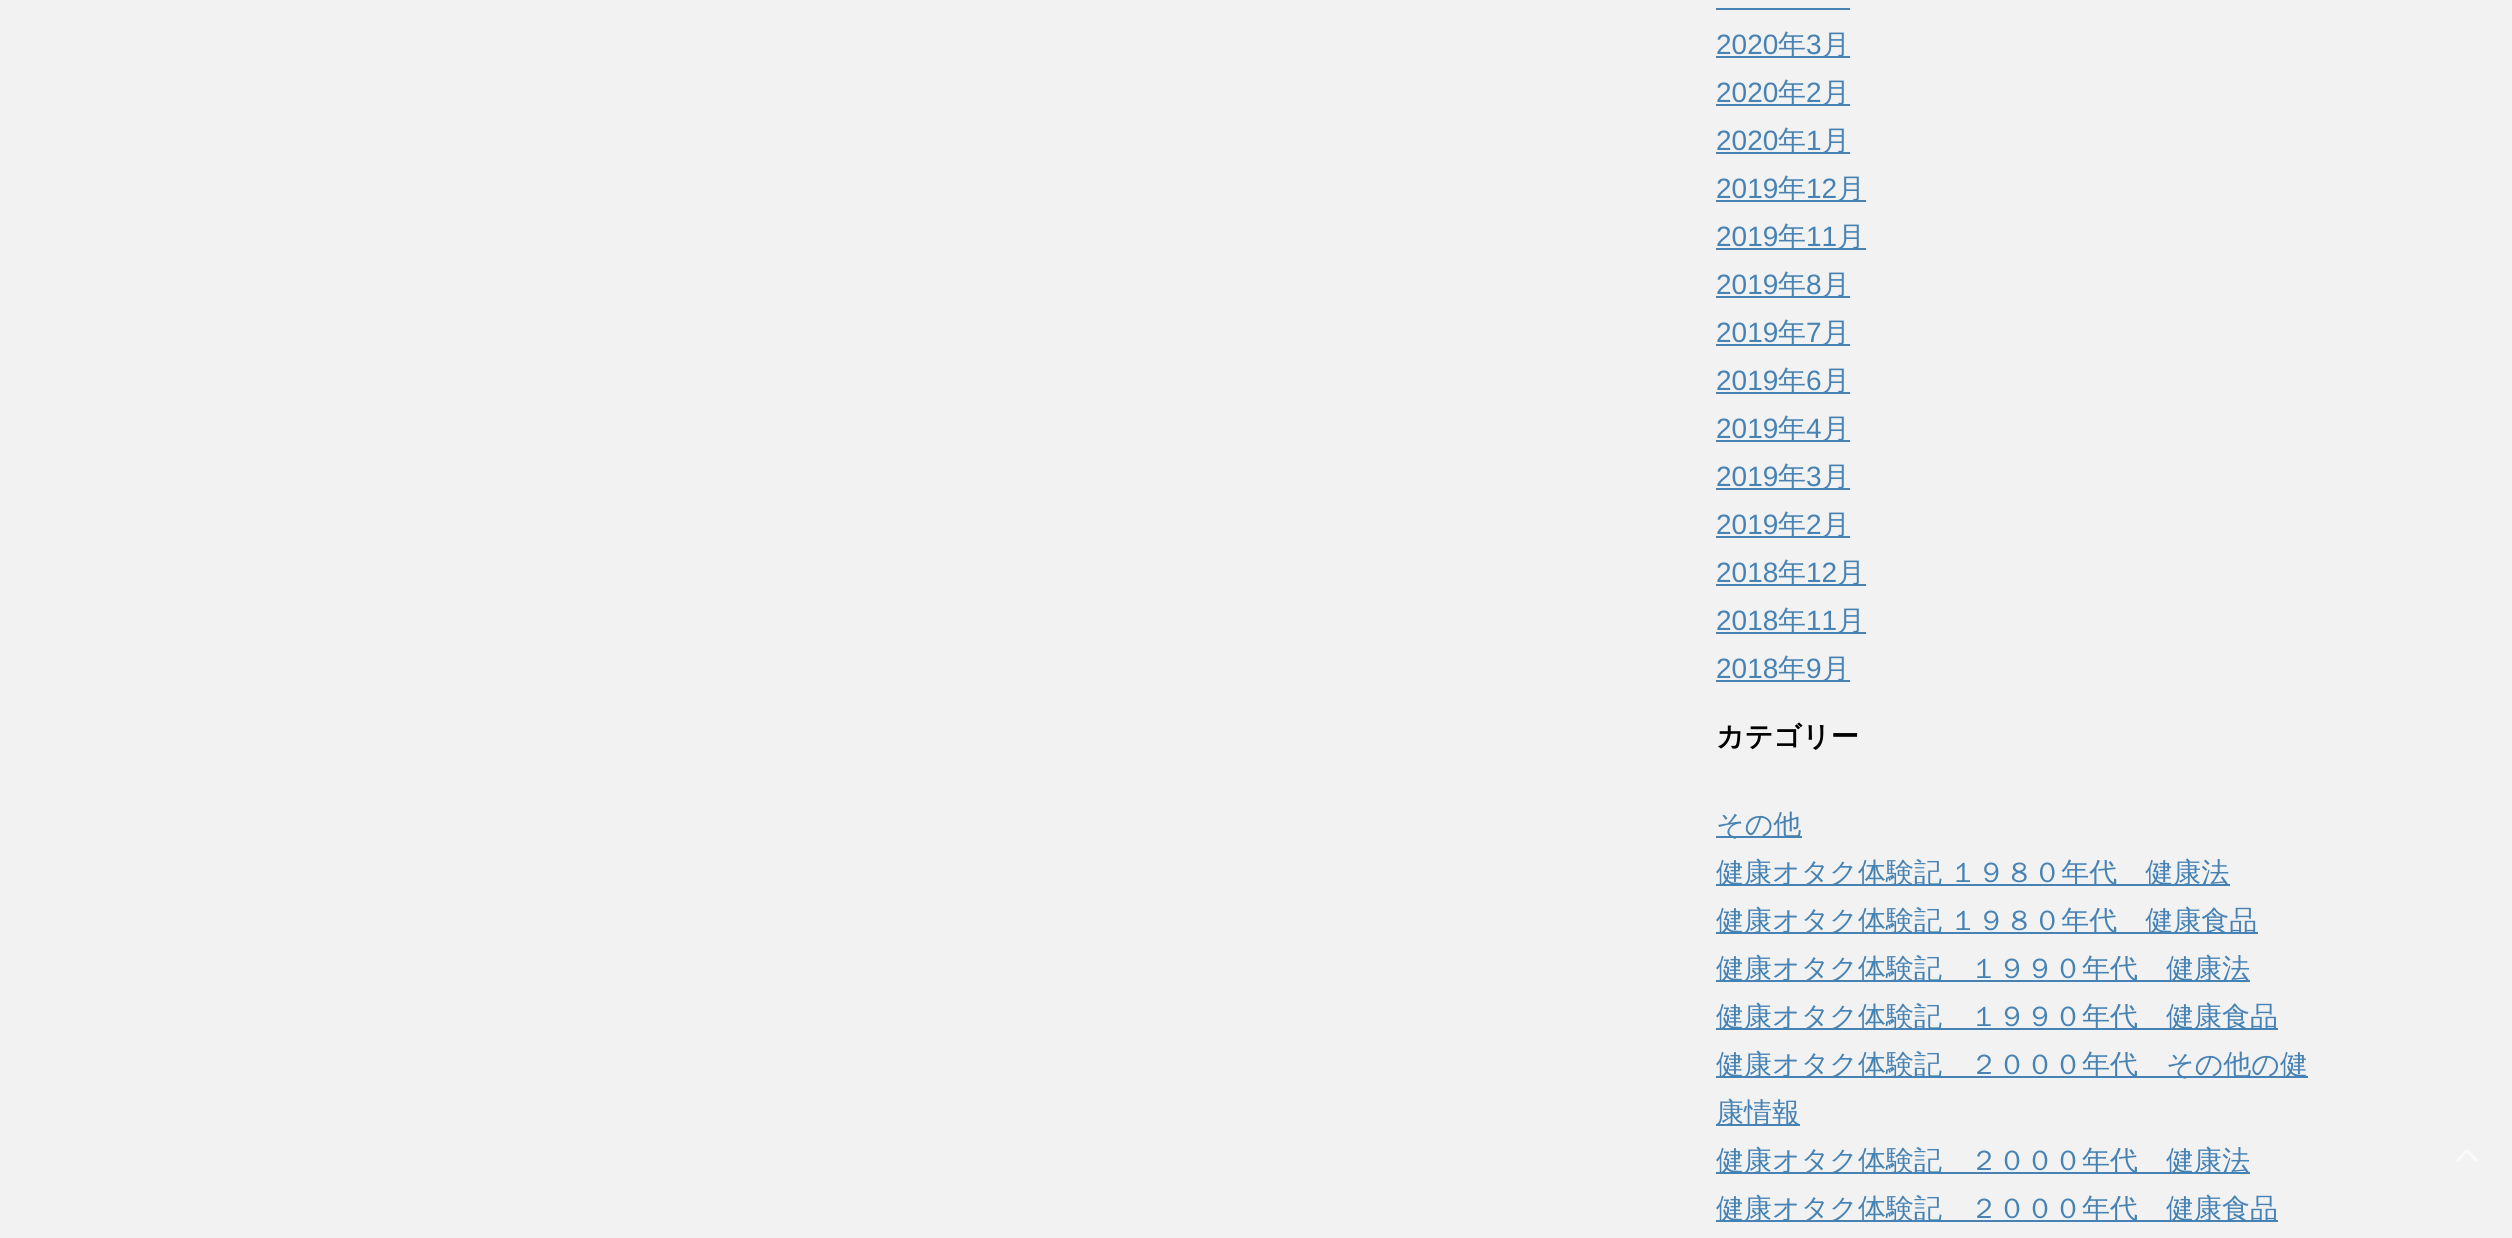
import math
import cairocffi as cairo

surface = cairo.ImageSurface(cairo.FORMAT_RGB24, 2512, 1238)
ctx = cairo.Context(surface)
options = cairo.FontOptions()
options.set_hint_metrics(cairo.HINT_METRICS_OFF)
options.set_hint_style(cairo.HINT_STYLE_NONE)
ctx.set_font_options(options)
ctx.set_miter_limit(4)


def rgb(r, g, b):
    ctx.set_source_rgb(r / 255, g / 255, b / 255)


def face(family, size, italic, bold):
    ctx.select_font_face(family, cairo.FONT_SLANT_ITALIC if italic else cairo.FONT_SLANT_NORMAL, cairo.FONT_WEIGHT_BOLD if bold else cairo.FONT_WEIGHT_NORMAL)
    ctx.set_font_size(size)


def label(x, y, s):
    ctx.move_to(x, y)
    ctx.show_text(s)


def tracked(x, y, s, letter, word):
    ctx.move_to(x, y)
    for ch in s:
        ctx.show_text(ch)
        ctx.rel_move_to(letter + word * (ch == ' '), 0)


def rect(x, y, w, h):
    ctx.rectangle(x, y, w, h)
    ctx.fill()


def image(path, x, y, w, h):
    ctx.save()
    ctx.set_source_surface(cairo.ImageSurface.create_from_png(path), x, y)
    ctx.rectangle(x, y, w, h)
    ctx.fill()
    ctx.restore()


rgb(242, 242, 242)
ctx.paint()
rgb(70, 130, 180)
rect(1716, 8, 134, 2)
face('Liberation Sans', 28, 0, 0)
label(1716, 54, '2020')
rect(1716, 56, 134, 2)
face('WenQuanYi Zen Hei Medium', 28, 0, 0)
label(1778, 54, '年')
face('Liberation Sans', 28, 0, 0)
label(1806, 54, '3')
face('WenQuanYi Zen Hei Medium', 28, 0, 0)
label(1822, 54, '月')
face('Liberation Sans', 28, 0, 0)
label(1716, 102, '2020')
rect(1716, 104, 134, 2)
face('WenQuanYi Zen Hei Medium', 28, 0, 0)
label(1778, 102, '年')
face('Liberation Sans', 28, 0, 0)
label(1806, 102, '2')
face('WenQuanYi Zen Hei Medium', 28, 0, 0)
label(1822, 102, '月')
face('Liberation Sans', 28, 0, 0)
label(1716, 150, '2020')
rect(1716, 152, 134, 2)
face('WenQuanYi Zen Hei Medium', 28, 0, 0)
label(1778, 150, '年')
face('Liberation Sans', 28, 0, 0)
label(1806, 150, '1')
face('WenQuanYi Zen Hei Medium', 28, 0, 0)
label(1822, 150, '月')
face('Liberation Sans', 28, 0, 0)
label(1716, 198, '2019')
rect(1716, 200, 150, 2)
face('WenQuanYi Zen Hei Medium', 28, 0, 0)
label(1778, 198, '年')
face('Liberation Sans', 28, 0, 0)
label(1806, 198, '12')
face('WenQuanYi Zen Hei Medium', 28, 0, 0)
label(1837, 198, '月')
face('Liberation Sans', 28, 0, 0)
label(1716, 246, '2019')
rect(1716, 248, 150, 2)
face('WenQuanYi Zen Hei Medium', 28, 0, 0)
label(1778, 246, '年')
face('Liberation Sans', 28, 0, 0)
label(1806, 246, '11')
face('WenQuanYi Zen Hei Medium', 28, 0, 0)
label(1837, 246, '月')
face('Liberation Sans', 28, 0, 0)
label(1716, 294, '2019')
rect(1716, 296, 134, 2)
face('WenQuanYi Zen Hei Medium', 28, 0, 0)
label(1778, 294, '年')
face('Liberation Sans', 28, 0, 0)
label(1806, 294, '8')
face('WenQuanYi Zen Hei Medium', 28, 0, 0)
label(1822, 294, '月')
face('Liberation Sans', 28, 0, 0)
label(1716, 342, '2019')
rect(1716, 344, 134, 2)
face('WenQuanYi Zen Hei Medium', 28, 0, 0)
label(1778, 342, '年')
face('Liberation Sans', 28, 0, 0)
label(1806, 342, '7')
face('WenQuanYi Zen Hei Medium', 28, 0, 0)
label(1822, 342, '月')
face('Liberation Sans', 28, 0, 0)
label(1716, 390, '2019')
rect(1716, 392, 134, 2)
face('WenQuanYi Zen Hei Medium', 28, 0, 0)
label(1778, 390, '年')
face('Liberation Sans', 28, 0, 0)
label(1806, 390, '6')
face('WenQuanYi Zen Hei Medium', 28, 0, 0)
label(1822, 390, '月')
face('Liberation Sans', 28, 0, 0)
label(1716, 438, '2019')
rect(1716, 440, 134, 2)
face('WenQuanYi Zen Hei Medium', 28, 0, 0)
label(1778, 438, '年')
face('Liberation Sans', 28, 0, 0)
label(1806, 438, '4')
face('WenQuanYi Zen Hei Medium', 28, 0, 0)
label(1822, 438, '月')
face('Liberation Sans', 28, 0, 0)
label(1716, 486, '2019')
rect(1716, 488, 134, 2)
face('WenQuanYi Zen Hei Medium', 28, 0, 0)
label(1778, 486, '年')
face('Liberation Sans', 28, 0, 0)
label(1806, 486, '3')
face('WenQuanYi Zen Hei Medium', 28, 0, 0)
label(1822, 486, '月')
face('Liberation Sans', 28, 0, 0)
label(1716, 534, '2019')
rect(1716, 536, 134, 2)
face('WenQuanYi Zen Hei Medium', 28, 0, 0)
label(1778, 534, '年')
face('Liberation Sans', 28, 0, 0)
label(1806, 534, '2')
face('WenQuanYi Zen Hei Medium', 28, 0, 0)
label(1822, 534, '月')
face('Liberation Sans', 28, 0, 0)
label(1716, 582, '2018')
rect(1716, 584, 150, 2)
face('WenQuanYi Zen Hei Medium', 28, 0, 0)
label(1778, 582, '年')
face('Liberation Sans', 28, 0, 0)
label(1806, 582, '12')
face('WenQuanYi Zen Hei Medium', 28, 0, 0)
label(1837, 582, '月')
face('Liberation Sans', 28, 0, 0)
label(1716, 630, '2018')
rect(1716, 632, 150, 2)
face('WenQuanYi Zen Hei Medium', 28, 0, 0)
label(1778, 630, '年')
face('Liberation Sans', 28, 0, 0)
label(1806, 630, '11')
face('WenQuanYi Zen Hei Medium', 28, 0, 0)
label(1837, 630, '月')
face('Liberation Sans', 28, 0, 0)
label(1716, 678, '2018')
rect(1716, 680, 134, 2)
face('WenQuanYi Zen Hei Medium', 28, 0, 0)
label(1778, 678, '年')
face('Liberation Sans', 28, 0, 0)
label(1806, 678, '9')
face('WenQuanYi Zen Hei Medium', 28, 0, 0)
label(1822, 678, '月')
face('WenQuanYi Zen Hei', 28, 0, 1)
rgb(0, 0, 0)
label(1716, 746, 'カテゴリー')
rgb(70, 130, 180)
rect(1716, 836, 86, 2)
face('WenQuanYi Zen Hei Medium', 28, 0, 0)
label(1716, 834, 'その他')
rect(1716, 884, 514, 2)
tracked(1716, 882, '健康オタク体験記 １９８０年代　健康法', 0, -1)
rect(1716, 932, 542, 2)
tracked(1716, 930, '健康オタク体験記 １９８０年代　健康食品', 0, -1)
rect(1716, 980, 534, 2)
label(1716, 978, '健康オタク体験記　１９９０年代　健康法')
rect(1716, 1028, 562, 2)
label(1716, 1026, '健康オタク体験記　１９９０年代　健康食品')
rect(1716, 1076, 592, 2)
label(1716, 1074, '健康オタク体験記　２０００年代　その他の健')
rect(1716, 1124, 84, 2)
label(1716, 1122, '康情報')
rect(1716, 1172, 534, 2)
label(1716, 1170, '健康オタク体験記　２０００年代　健康法')
rect(1716, 1220, 562, 2)
label(1716, 1218, '健康オタク体験記　２０００年代　健康食品')
image('image0.png', 2456, 1149, 22, 13)
surface.write_to_png('render.png')
